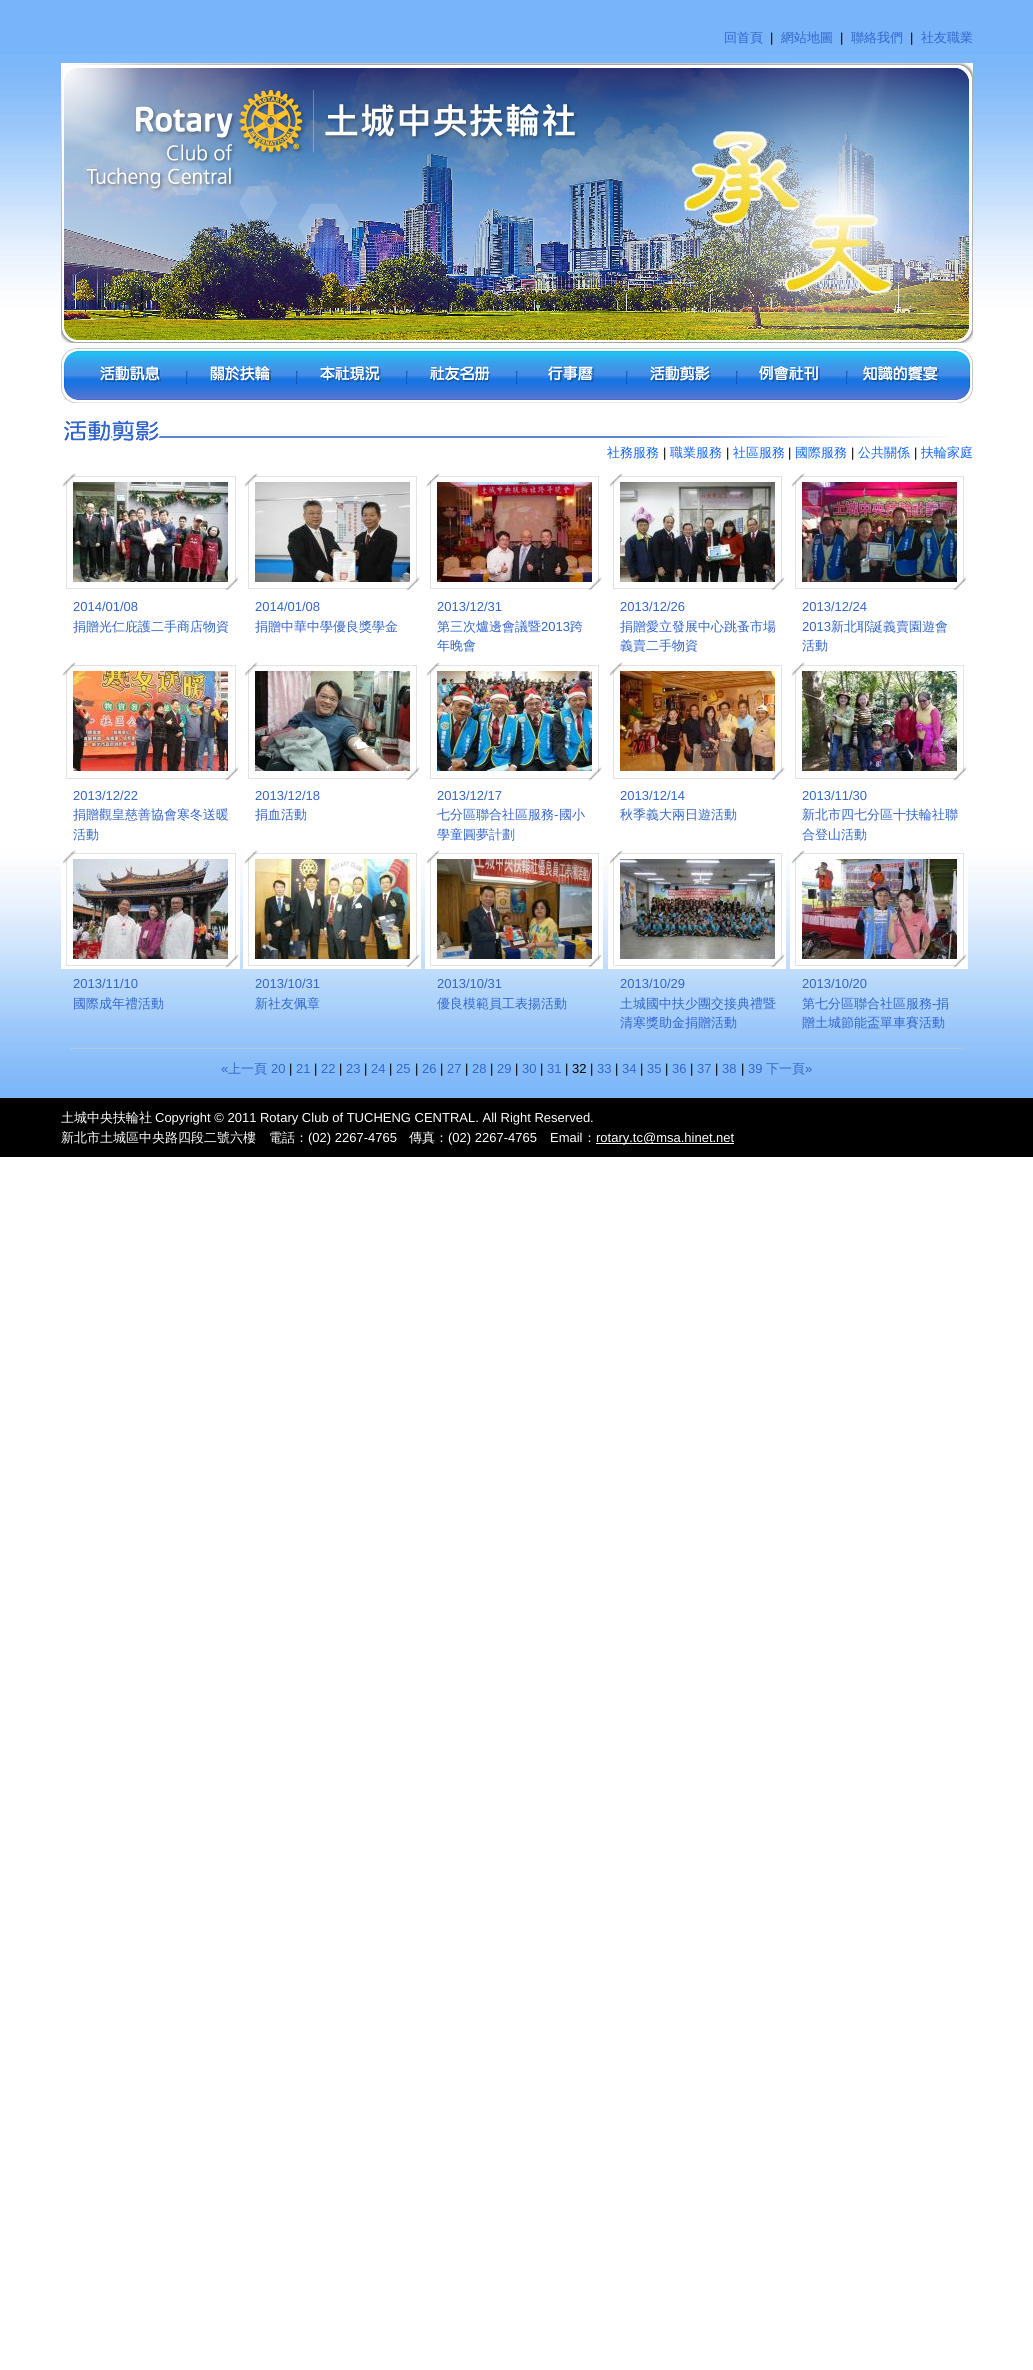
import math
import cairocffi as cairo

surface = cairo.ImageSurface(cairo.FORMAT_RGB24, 1033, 2370)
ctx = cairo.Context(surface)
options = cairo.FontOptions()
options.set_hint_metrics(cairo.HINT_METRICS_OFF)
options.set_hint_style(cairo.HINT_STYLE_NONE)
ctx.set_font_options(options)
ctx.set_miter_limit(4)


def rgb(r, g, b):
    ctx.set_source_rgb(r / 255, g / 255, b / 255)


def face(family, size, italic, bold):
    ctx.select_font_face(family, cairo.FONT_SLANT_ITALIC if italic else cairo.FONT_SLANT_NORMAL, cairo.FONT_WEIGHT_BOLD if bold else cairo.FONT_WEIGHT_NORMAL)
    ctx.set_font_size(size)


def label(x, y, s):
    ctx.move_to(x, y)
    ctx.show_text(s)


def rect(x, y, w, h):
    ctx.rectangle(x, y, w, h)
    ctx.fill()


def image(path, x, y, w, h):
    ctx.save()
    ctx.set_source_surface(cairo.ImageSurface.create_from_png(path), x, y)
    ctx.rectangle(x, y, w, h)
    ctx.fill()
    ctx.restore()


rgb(255, 255, 255)
ctx.paint()
image('image0.png', 0, 0, 1033, 1098)
face('WenQuanYi Zen Hei Medium', 13, 0, 0)
rgb(51, 102, 204)
label(724, 42, '回首頁')
face('Liberation Sans', 13, 0, 0)
rgb(0, 0, 0)
label(770, 42, '|')
face('WenQuanYi Zen Hei Medium', 13, 0, 0)
rgb(51, 102, 204)
label(781, 42, '網站地圖')
face('Liberation Sans', 13, 0, 0)
rgb(0, 0, 0)
label(840, 42, '|')
face('WenQuanYi Zen Hei Medium', 13, 0, 0)
rgb(51, 102, 204)
label(851, 42, '聯絡我們')
face('Liberation Sans', 13, 0, 0)
rgb(0, 0, 0)
label(910, 42, '|')
face('WenQuanYi Zen Hei Medium', 13, 0, 0)
rgb(51, 102, 204)
label(921, 42, '社友職業')
image('image1.png', 61, 63, 912, 280)
image('image2.png', 61, 348, 126, 55)
image('image3.png', 187, 348, 110, 55)
image('image4.png', 297, 348, 110, 55)
image('image5.png', 407, 348, 110, 55)
image('image6.png', 517, 348, 110, 55)
image('image7.png', 627, 348, 110, 55)
image('image8.png', 737, 348, 110, 55)
image('image9.png', 847, 348, 126, 55)
image('image10.png', 64, 420, 885, 21)
rgb(17, 102, 255)
label(607, 457, '社務服務')
face('Liberation Sans', 13, 0, 0)
rgb(0, 0, 0)
label(663, 457, '|')
face('WenQuanYi Zen Hei Medium', 13, 0, 0)
rgb(17, 102, 255)
label(670, 457, '職業服務')
face('Liberation Sans', 13, 0, 0)
rgb(0, 0, 0)
label(726, 457, '|')
face('WenQuanYi Zen Hei Medium', 13, 0, 0)
rgb(17, 102, 255)
label(733, 457, '社區服務')
face('Liberation Sans', 13, 0, 0)
rgb(0, 0, 0)
label(788, 457, '|')
face('WenQuanYi Zen Hei Medium', 13, 0, 0)
rgb(17, 102, 255)
label(795, 457, '國際服務')
face('Liberation Sans', 13, 0, 0)
rgb(0, 0, 0)
label(851, 457, '|')
face('WenQuanYi Zen Hei Medium', 13, 0, 0)
rgb(17, 102, 255)
label(858, 457, '公共關係')
face('Liberation Sans', 13, 0, 0)
rgb(0, 0, 0)
label(914, 457, '|')
face('WenQuanYi Zen Hei Medium', 13, 0, 0)
rgb(17, 102, 255)
label(921, 457, '扶輪家庭')
image('image11.png', 62, 473, 177, 118)
image('image12.png', 73, 482, 155, 100)
face('Liberation Sans', 13, 0, 0)
rgb(51, 102, 204)
label(73, 611, '2014/01/08')
face('WenQuanYi Zen Hei Medium', 13, 0, 0)
label(73, 631, '捐贈光仁庇護二手商店物資')
image('image13.png', 244, 473, 176, 118)
image('image14.png', 255, 482, 155, 100)
face('Liberation Sans', 13, 0, 0)
label(255, 611, '2014/01/08')
face('WenQuanYi Zen Hei Medium', 13, 0, 0)
label(255, 631, '捐贈中華中學優良獎學金')
image('image13.png', 426, 473, 176, 118)
image('image15.png', 437, 482, 155, 100)
face('Liberation Sans', 13, 0, 0)
label(437, 611, '2013/12/31')
face('WenQuanYi Zen Hei Medium', 13, 0, 0)
label(437, 631, '第三次爐邊會議暨')
face('Liberation Sans', 13, 0, 0)
label(541, 631, '2013')
face('WenQuanYi Zen Hei Medium', 13, 0, 0)
label(570, 631, '跨')
label(437, 650, '年晚會')
image('image13.png', 609, 473, 176, 118)
image('image16.png', 620, 482, 155, 100)
face('Liberation Sans', 13, 0, 0)
label(620, 611, '2013/12/26')
face('WenQuanYi Zen Hei Medium', 13, 0, 0)
label(620, 631, '捐贈愛立發展中心跳蚤市場')
label(620, 650, '義賣二手物資')
image('image13.png', 791, 473, 176, 118)
image('image17.png', 802, 482, 155, 100)
face('Liberation Sans', 13, 0, 0)
label(802, 611, '2013/12/24')
label(802, 631, '2013')
face('WenQuanYi Zen Hei Medium', 13, 0, 0)
label(831, 631, '新北耶誕義賣園遊會')
label(802, 650, '活動')
image('image18.png', 62, 662, 177, 119)
image('image19.png', 73, 671, 155, 100)
face('Liberation Sans', 13, 0, 0)
label(73, 800, '2013/12/22')
face('WenQuanYi Zen Hei Medium', 13, 0, 0)
label(73, 819, '捐贈觀皇慈善協會寒冬送暖')
label(73, 839, '活動')
image('image20.png', 244, 662, 176, 119)
image('image21.png', 255, 671, 155, 100)
face('Liberation Sans', 13, 0, 0)
label(255, 800, '2013/12/18')
face('WenQuanYi Zen Hei Medium', 13, 0, 0)
label(255, 819, '捐血活動')
image('image20.png', 426, 662, 176, 119)
image('image22.png', 437, 671, 155, 100)
face('Liberation Sans', 13, 0, 0)
label(437, 800, '2013/12/17')
face('WenQuanYi Zen Hei Medium', 13, 0, 0)
label(437, 819, '七分區聯合社區服務')
face('Liberation Sans', 13, 0, 0)
label(554, 819, '-')
face('WenQuanYi Zen Hei Medium', 13, 0, 0)
label(559, 819, '國小')
label(437, 839, '學童圓夢計劃')
image('image20.png', 609, 662, 176, 119)
image('image23.png', 620, 671, 155, 100)
face('Liberation Sans', 13, 0, 0)
label(620, 800, '2013/12/14')
face('WenQuanYi Zen Hei Medium', 13, 0, 0)
label(620, 819, '秋季義大兩日遊活動')
image('image20.png', 791, 662, 176, 119)
image('image24.png', 802, 671, 155, 100)
face('Liberation Sans', 13, 0, 0)
label(802, 800, '2013/11/30')
face('WenQuanYi Zen Hei Medium', 13, 0, 0)
label(802, 819, '新北市四七分區十扶輪社聯')
label(802, 839, '合登山活動')
image('image25.png', 61, 850, 179, 119)
image('image26.png', 73, 859, 155, 100)
face('Liberation Sans', 13, 0, 0)
label(73, 988, '2013/11/10')
face('WenQuanYi Zen Hei Medium', 13, 0, 0)
label(73, 1008, '國際成年禮活動')
image('image27.png', 243, 850, 178, 119)
image('image28.png', 255, 859, 155, 100)
face('Liberation Sans', 13, 0, 0)
label(255, 988, '2013/10/31')
face('WenQuanYi Zen Hei Medium', 13, 0, 0)
label(255, 1008, '新社友佩章')
image('image27.png', 425, 850, 178, 119)
image('image29.png', 437, 859, 155, 100)
face('Liberation Sans', 13, 0, 0)
label(437, 988, '2013/10/31')
face('WenQuanYi Zen Hei Medium', 13, 0, 0)
label(437, 1008, '優良模範員工表揚活動')
image('image27.png', 608, 850, 178, 119)
image('image30.png', 620, 859, 155, 100)
face('Liberation Sans', 13, 0, 0)
label(620, 988, '2013/10/29')
face('WenQuanYi Zen Hei Medium', 13, 0, 0)
label(620, 1008, '土城國中扶少團交接典禮暨')
label(620, 1027, '清寒獎助金捐贈活動')
image('image27.png', 790, 850, 178, 119)
image('image31.png', 802, 859, 155, 100)
face('Liberation Sans', 13, 0, 0)
label(802, 988, '2013/10/20')
face('WenQuanYi Zen Hei Medium', 13, 0, 0)
label(802, 1008, '第七分區聯合社區服務')
face('Liberation Sans', 13, 0, 0)
label(932, 1008, '-')
face('WenQuanYi Zen Hei Medium', 13, 0, 0)
label(936, 1008, '捐')
label(802, 1027, '贈土城節能盃單車賽活動')
ctx.new_path()
ctx.move_to(71, 1048.5)
ctx.line_to(963, 1048.5)
rgb(204, 204, 204)
ctx.set_line_width(1)
ctx.set_dash([1, 1])
ctx.stroke()
face('Liberation Sans', 13, 0, 0)
rgb(51, 102, 204)
label(221, 1073, '«')
face('WenQuanYi Zen Hei Medium', 13, 0, 0)
label(228, 1073, '上一頁')
face('Liberation Sans', 13, 0, 0)
label(271, 1073, '20')
rgb(0, 0, 0)
label(289, 1073, '|')
rgb(51, 102, 204)
label(296, 1073, '21')
rgb(0, 0, 0)
label(314, 1073, '|')
rgb(51, 102, 204)
label(321, 1073, '22')
rgb(0, 0, 0)
label(339, 1073, '|')
rgb(51, 102, 204)
label(346, 1073, '23')
rgb(0, 0, 0)
label(364, 1073, '|')
rgb(51, 102, 204)
label(371, 1073, '24')
rgb(0, 0, 0)
label(389, 1073, '|')
rgb(51, 102, 204)
label(396, 1073, '25')
rgb(0, 0, 0)
label(415, 1073, '|')
rgb(51, 102, 204)
label(422, 1073, '26')
rgb(0, 0, 0)
label(440, 1073, '|')
rgb(51, 102, 204)
label(447, 1073, '27')
rgb(0, 0, 0)
label(465, 1073, '|')
rgb(51, 102, 204)
label(472, 1073, '28')
rgb(0, 0, 0)
label(490, 1073, '|')
rgb(51, 102, 204)
label(497, 1073, '29')
rgb(0, 0, 0)
label(515, 1073, '|')
rgb(51, 102, 204)
label(522, 1073, '30')
rgb(0, 0, 0)
label(540, 1073, '|')
rgb(51, 102, 204)
label(547, 1073, '31')
rgb(0, 0, 0)
label(565, 1073, '| 32 |')
rgb(51, 102, 204)
label(597, 1073, '33')
rgb(0, 0, 0)
label(615, 1073, '|')
rgb(51, 102, 204)
label(622, 1073, '34')
rgb(0, 0, 0)
label(640, 1073, '|')
rgb(51, 102, 204)
label(647, 1073, '35')
rgb(0, 0, 0)
label(665, 1073, '|')
rgb(51, 102, 204)
label(672, 1073, '36')
rgb(0, 0, 0)
label(690, 1073, '|')
rgb(51, 102, 204)
label(697, 1073, '37')
rgb(0, 0, 0)
label(715, 1073, '|')
rgb(51, 102, 204)
label(722, 1073, '38')
rgb(0, 0, 0)
label(741, 1073, '|')
rgb(51, 102, 204)
label(748, 1073, '39')
face('WenQuanYi Zen Hei Medium', 13, 0, 0)
label(766, 1073, '下一頁')
face('Liberation Sans', 13, 0, 0)
label(805, 1073, '»')
rgb(0, 0, 0)
rect(0, 1098, 1033, 59)
face('WenQuanYi Zen Hei Medium', 13, 0, 0)
rgb(255, 255, 255)
label(61, 1122, '土城中央扶輪社')
face('Liberation Sans', 13, 0, 0)
label(155, 1122, 'Copyright © 2011 Rotary Club of TUCHENG CENTRAL. All Right Reserved.')
face('WenQuanYi Zen Hei Medium', 13, 0, 0)
label(61, 1142, '新北市土城區中央路四段二號六樓　電話：')
face('Liberation Sans', 13, 0, 0)
label(308, 1142, '(02) 2267-4765')
face('WenQuanYi Zen Hei Medium', 13, 0, 0)
label(409, 1142, '傳真：')
face('Liberation Sans', 13, 0, 0)
label(448, 1142, '(02) 2267-4765')
label(550, 1142, 'Email')
face('WenQuanYi Zen Hei Medium', 13, 0, 0)
label(583, 1142, '：')
rect(596, 1143, 138, 1)
face('Liberation Sans', 13, 0, 0)
label(596, 1142, 'rotary.tc@msa.hinet.net')
surface.write_to_png('render.png')
